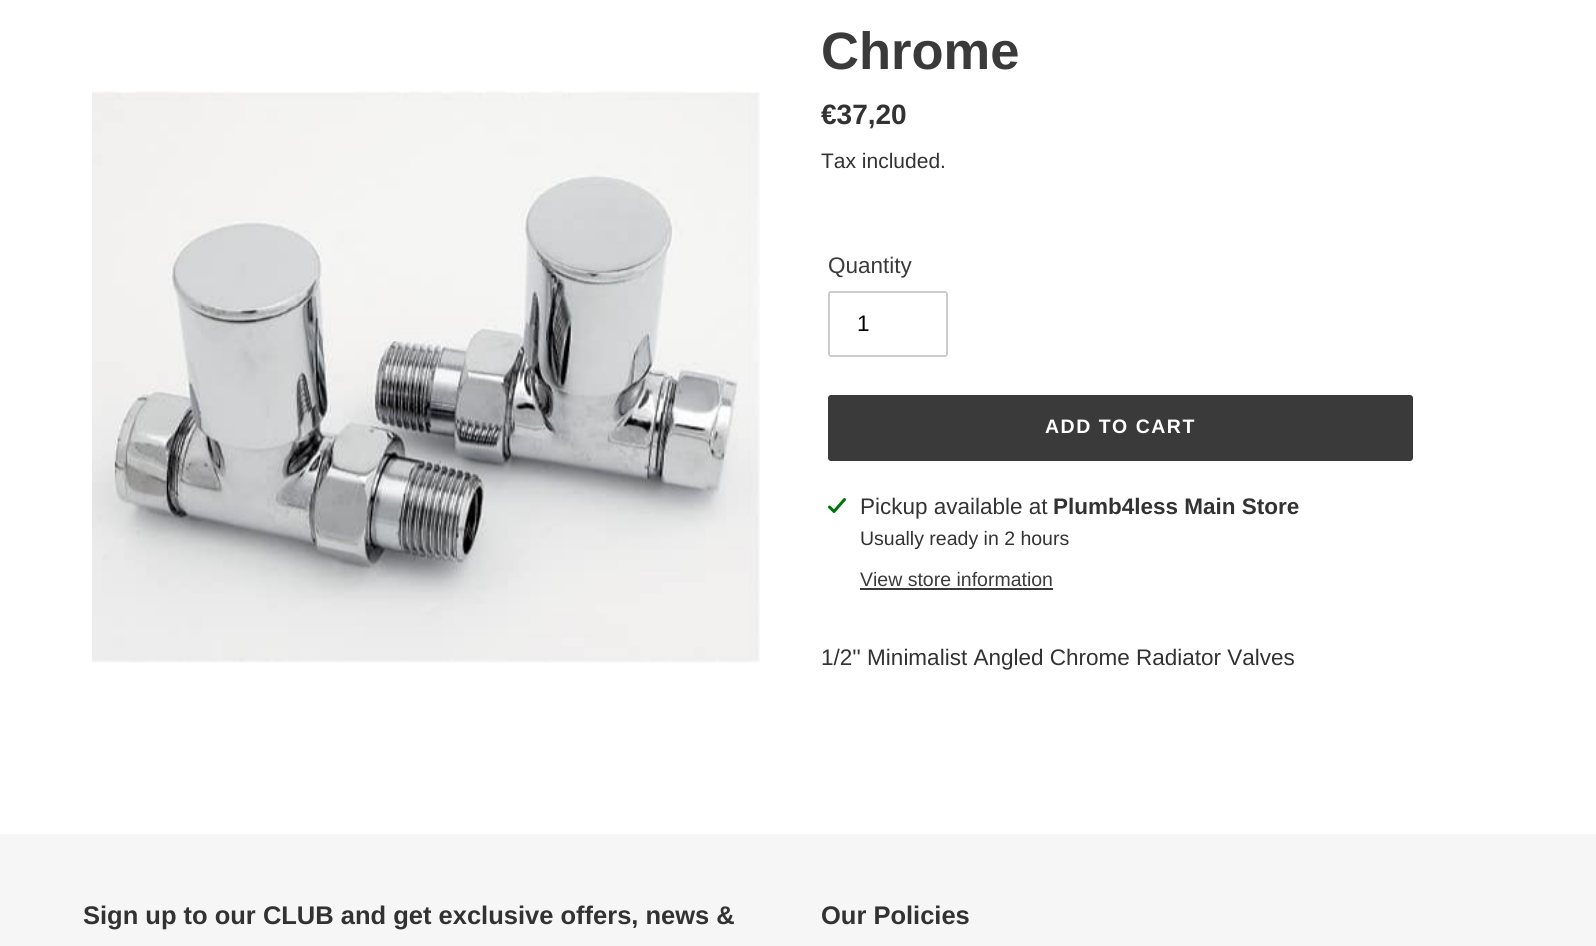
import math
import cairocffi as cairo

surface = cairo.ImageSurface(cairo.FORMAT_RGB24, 1596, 946)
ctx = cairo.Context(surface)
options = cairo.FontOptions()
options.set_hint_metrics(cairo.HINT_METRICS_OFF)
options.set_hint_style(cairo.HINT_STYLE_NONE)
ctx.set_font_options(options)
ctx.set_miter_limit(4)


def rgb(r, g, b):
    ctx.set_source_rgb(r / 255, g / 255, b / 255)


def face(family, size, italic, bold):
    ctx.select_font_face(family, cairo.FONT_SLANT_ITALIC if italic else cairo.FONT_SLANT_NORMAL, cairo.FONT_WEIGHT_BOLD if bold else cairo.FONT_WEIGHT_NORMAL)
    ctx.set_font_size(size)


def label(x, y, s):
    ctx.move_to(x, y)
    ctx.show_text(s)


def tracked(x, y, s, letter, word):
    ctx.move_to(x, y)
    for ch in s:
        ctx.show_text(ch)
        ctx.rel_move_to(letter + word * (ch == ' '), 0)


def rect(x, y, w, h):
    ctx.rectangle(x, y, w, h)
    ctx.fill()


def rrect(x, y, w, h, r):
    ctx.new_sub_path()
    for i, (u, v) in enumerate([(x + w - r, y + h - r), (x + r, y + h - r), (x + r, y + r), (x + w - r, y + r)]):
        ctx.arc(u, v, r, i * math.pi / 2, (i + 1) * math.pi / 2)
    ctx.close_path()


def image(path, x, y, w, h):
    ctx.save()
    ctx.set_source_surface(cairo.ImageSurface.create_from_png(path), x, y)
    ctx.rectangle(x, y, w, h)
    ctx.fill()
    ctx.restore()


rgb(255, 255, 255)
ctx.paint()
image('image0.png', 92, 90, 668, 573)
face('Liberation Sans', 52.5, 0, 1)
rgb(58, 58, 58)
label(821, 69, 'Chrome')
face('Liberation Sans', 28, 0, 1)
rgb(51, 50, 50)
label(821, 124, '€37,20')
face('Liberation Sans', 21, 0, 0)
label(821, 168, 'Tax included.')
face('Liberation Sans', 22.5, 0, 0)
rgb(58, 58, 58)
label(828, 273, 'Quantity')
rrect(829, 292, 118, 64, 2)
rgb(204, 204, 204)
ctx.stroke()
rgb(0, 0, 0)
label(857, 331, '1')
rgb(58, 58, 58)
rrect(828, 395, 585, 66, 3)
ctx.fill()
face('Liberation Sans', 19.5, 0, 1)
rgb(255, 255, 255)
tracked(1045, 433, 'ADD TO CART', 1.5, 0)
image('image1.png', 828, 498, 18, 15)
face('Liberation Sans', 22.5, 0, 0)
rgb(51, 50, 50)
label(860, 514, 'Pickup available at')
face('Liberation Sans', 22.5, 0, 1)
label(1053, 514, 'Plumb4less Main Store')
face('Liberation Sans', 19.5, 0, 0)
label(860, 545, 'Usually ready in 2 hours')
rgb(58, 58, 58)
label(860, 586, 'View store information')
rect(860, 588, 193, 2)
face('Liberation Sans', 22.5, 0, 0)
rgb(51, 50, 50)
label(821, 665, '1/2\'\' Minimalist Angled Chrome Radiator Valves')
rgb(246, 246, 246)
rect(0, 834, 1596, 112)
face('Liberation Sans', 25.5, 0, 1)
rgb(51, 50, 50)
label(83, 924, 'Sign up to our CLUB and get exclusive offers, news &')
label(821, 924, 'Our Policies')
surface.write_to_png('render.png')
